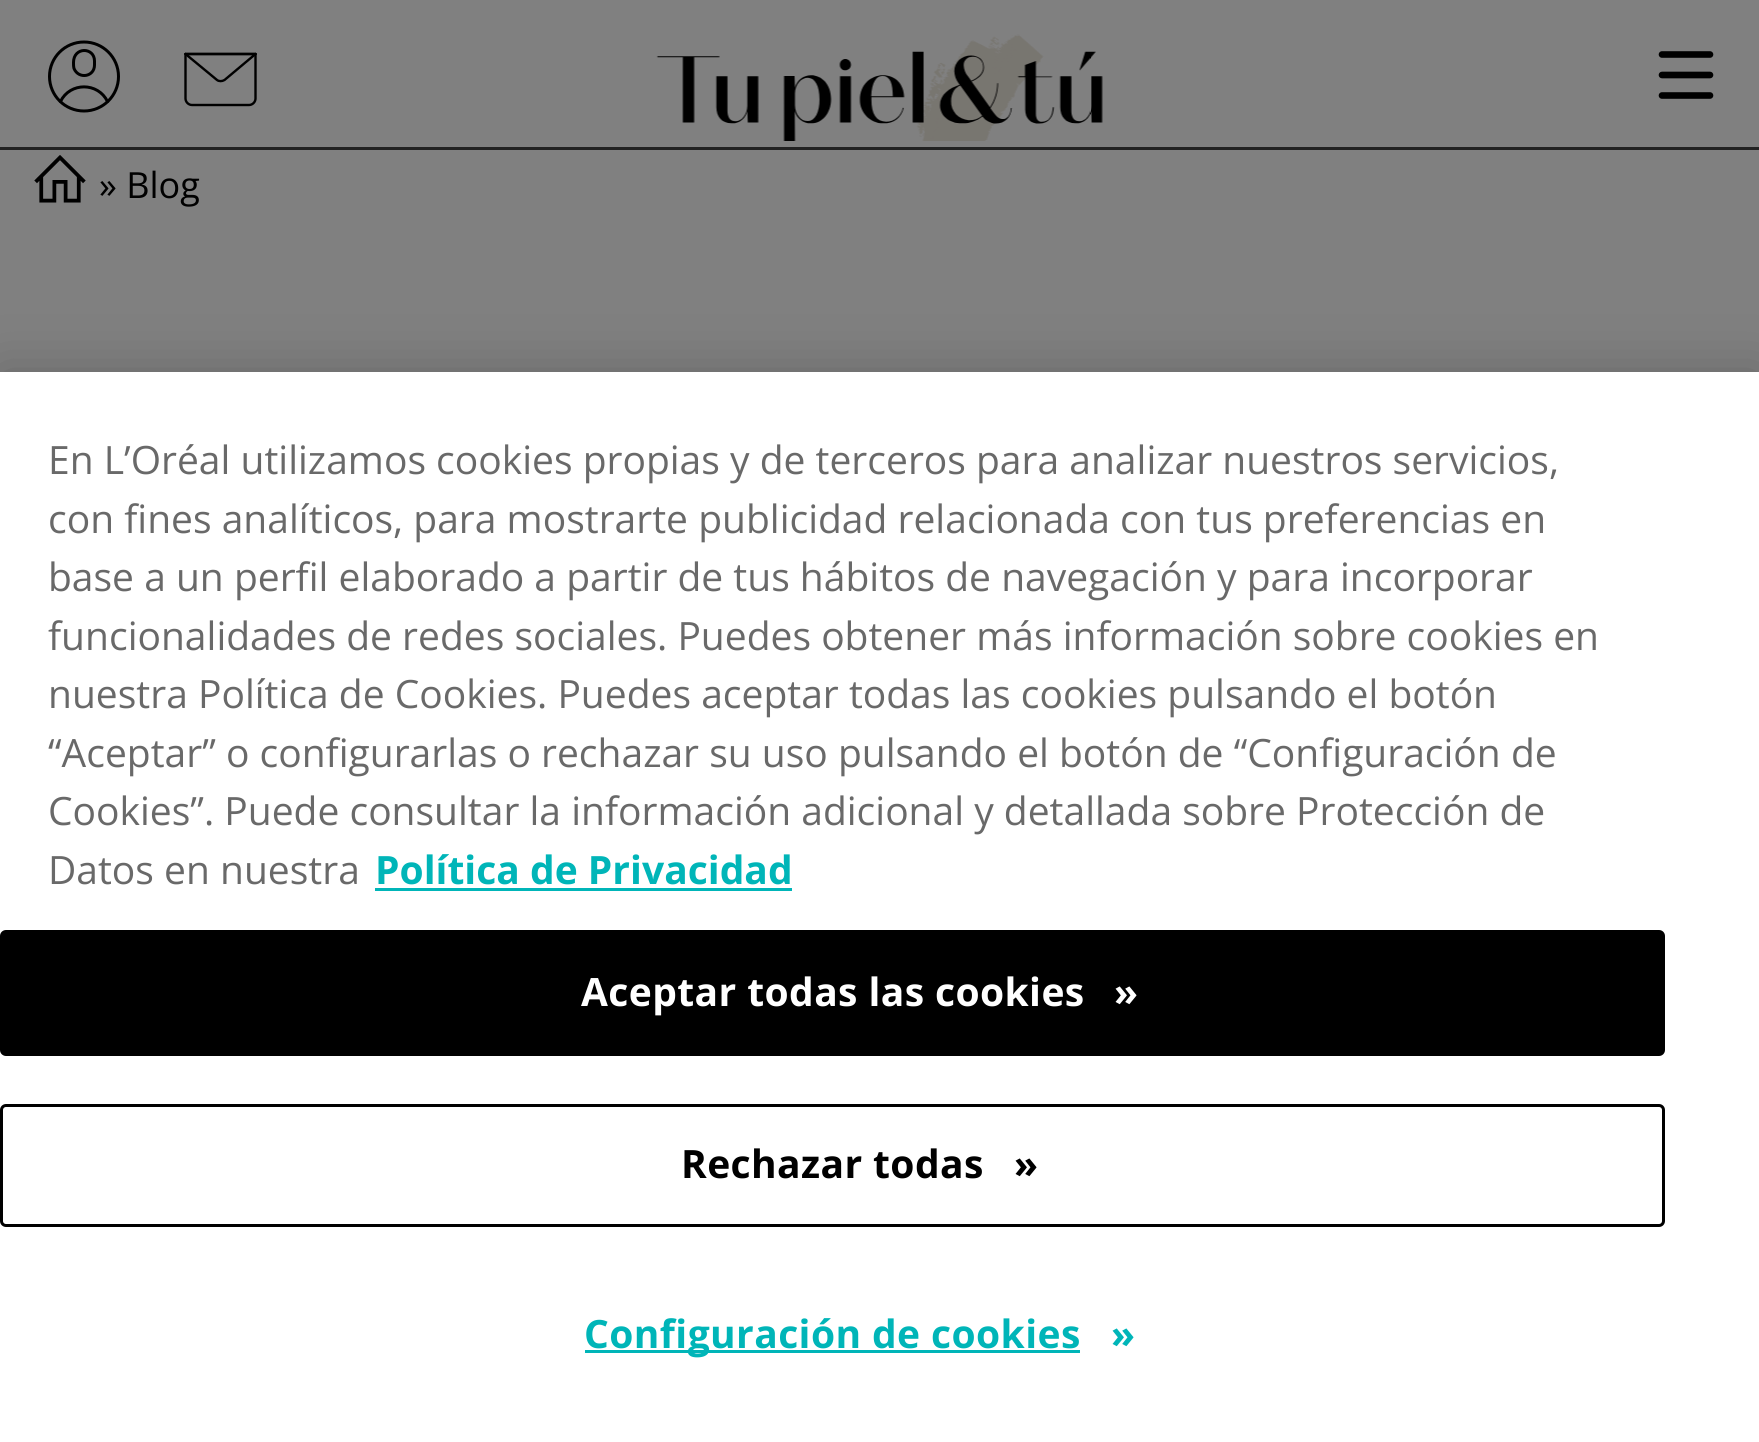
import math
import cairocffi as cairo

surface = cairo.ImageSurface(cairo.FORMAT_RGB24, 1759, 1442)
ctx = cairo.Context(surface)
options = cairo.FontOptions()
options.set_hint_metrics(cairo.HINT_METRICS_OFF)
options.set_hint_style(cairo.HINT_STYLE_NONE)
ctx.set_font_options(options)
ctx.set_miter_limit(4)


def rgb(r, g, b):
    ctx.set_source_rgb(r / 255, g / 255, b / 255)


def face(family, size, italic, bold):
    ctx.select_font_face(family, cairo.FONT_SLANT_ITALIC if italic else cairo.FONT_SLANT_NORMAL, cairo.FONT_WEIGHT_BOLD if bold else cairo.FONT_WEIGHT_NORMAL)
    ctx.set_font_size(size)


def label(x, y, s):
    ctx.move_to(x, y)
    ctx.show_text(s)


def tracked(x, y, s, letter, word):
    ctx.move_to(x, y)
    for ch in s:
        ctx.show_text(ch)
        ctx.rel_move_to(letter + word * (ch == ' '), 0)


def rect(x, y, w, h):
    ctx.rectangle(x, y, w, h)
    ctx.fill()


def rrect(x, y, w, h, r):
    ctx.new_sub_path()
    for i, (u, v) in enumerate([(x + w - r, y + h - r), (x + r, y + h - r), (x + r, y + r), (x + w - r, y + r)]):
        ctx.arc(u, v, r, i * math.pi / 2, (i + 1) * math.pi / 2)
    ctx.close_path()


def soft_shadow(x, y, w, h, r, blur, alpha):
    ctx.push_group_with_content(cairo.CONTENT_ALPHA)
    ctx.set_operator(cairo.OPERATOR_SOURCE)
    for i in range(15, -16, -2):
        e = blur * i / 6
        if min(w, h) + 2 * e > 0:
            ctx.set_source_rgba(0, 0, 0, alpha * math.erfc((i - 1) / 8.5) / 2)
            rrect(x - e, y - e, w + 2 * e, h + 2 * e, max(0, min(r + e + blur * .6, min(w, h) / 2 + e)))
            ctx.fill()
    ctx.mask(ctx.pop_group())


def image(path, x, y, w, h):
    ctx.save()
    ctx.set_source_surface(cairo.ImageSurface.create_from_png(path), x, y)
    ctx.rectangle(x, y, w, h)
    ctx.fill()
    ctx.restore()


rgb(128, 128, 128)
ctx.paint()
rgb(34, 34, 34)
rect(0, 147, 1759, 3)
ctx.new_path()
ctx.move_to(94.5, 65)
ctx.curve_to(94.5, 77, 78.5, 79.5, 74, 68.5)
ctx.curve_to(73.5, 66.5, 73.5, 64.5, 73.5, 62.5)
ctx.curve_to(73.5, 46.5, 94.5, 47, 94.5, 61)
ctx.close_path()
rgb(0, 0, 0)
ctx.set_line_width(3)
ctx.set_line_cap(cairo.LINE_CAP_ROUND)
ctx.set_line_join(cairo.LINE_JOIN_ROUND)
ctx.stroke()
ctx.arc(84, 76.5, 34.5, 0, 2 * math.pi)
ctx.set_line_cap(cairo.LINE_CAP_BUTT)
ctx.set_line_join(cairo.LINE_JOIN_MITER)
ctx.stroke()
ctx.new_path()
ctx.move_to(60.5, 101.5)
ctx.curve_to(70, 82, 98, 82, 107.5, 101.5)
ctx.set_line_cap(cairo.LINE_CAP_ROUND)
ctx.set_line_join(cairo.LINE_JOIN_ROUND)
ctx.stroke()
ctx.new_path()
ctx.move_to(255.5, 54)
ctx.line_to(255.5, 98.5)
ctx.curve_to(255.5, 102, 252.5, 105, 249, 105)
ctx.line_to(192, 105)
ctx.curve_to(188.5, 105, 185.5, 102, 185.5, 98.5)
ctx.line_to(185.5, 54)
ctx.set_line_width(2.4)
ctx.stroke()
ctx.new_path()
ctx.move_to(255.5, 54)
ctx.line_to(224.5, 80)
ctx.curve_to(222, 81.5, 219, 81.5, 217, 80)
ctx.line_to(185.5, 54)
ctx.close_path()
ctx.stroke()
ctx.new_path()
ctx.move_to(185.5, 54)
ctx.line_to(255.5, 54)
ctx.stroke()
image('image0.png', 656, 34, 447, 107)
ctx.new_path()
ctx.move_to(1662, 54.5)
ctx.line_to(1710, 54.5)
ctx.move_to(1662, 75)
ctx.line_to(1710, 75)
ctx.move_to(1710, 95.5)
ctx.line_to(1662, 95.5)
ctx.set_line_width(6.6)
ctx.set_line_join(cairo.LINE_JOIN_MITER)
ctx.stroke()
image('image1.png', 34, 155, 52, 48)
face('Open Sans', 36, 0, 0)
label(99, 198, '» Blog')
rgb(0, 0, 0)
soft_shadow(0, 372, 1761, 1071, 0, 27, 0.2)
rgb(255, 255, 255)
rect(0, 372, 1759, 1070)
face('Open Sans', 39, 0, 0)
rgb(105, 105, 105)
label(48, 474, 'En L’Oréal utilizamos cookies propias y de terceros para analizar nuestros servicios,')
label(48, 533, 'con fines analíticos, para mostrarte publicidad relacionada con tus preferencias en')
label(48, 591, 'base a un perfil elaborado a partir de tus hábitos de navegación y para incorporar')
label(48, 650, 'funcionalidades de redes sociales. Puedes obtener más información sobre cookies en')
label(48, 708, 'nuestra Política de Cookies. Puedes aceptar todas las cookies pulsando el botón')
label(48, 767, '“Aceptar” o configurarlas o rechazar su uso pulsando el botón de “Configuración de')
label(48, 825, 'Cookies”. Puede consultar la información adicional y detallada sobre Protección de')
label(48, 884, 'Datos en nuestra')
face('Open Sans', 39, 0, 1)
rgb(0, 181, 184)
label(375, 884, 'Política de Privacidad')
rect(375, 888, 417, 3)
rgb(0, 0, 0)
rrect(1.5, 931.5, 1662, 123, 4.5)
ctx.fill_preserve()
ctx.set_line_width(3)
ctx.set_line_cap(cairo.LINE_CAP_BUTT)
ctx.stroke()
rgb(255, 255, 255)
tracked(581, 1006, 'Aceptar todas las cookies', 0.4, 0)
tracked(1114, 1006, '»', 0.4, 0)
rrect(1.5, 1105.5, 1662, 120, 4.5)
rgb(0, 0, 0)
ctx.stroke()
tracked(681, 1178, 'Rechazar todas', 0.4, 0)
tracked(1014, 1178, '»', 0.4, 0)
rgb(0, 181, 184)
rect(585, 1350, 495, 3)
tracked(584, 1348, 'Configuración de cookies', 0.4, 0)
tracked(1111, 1348, '»', 0.4, 0)
surface.write_to_png('render.png')
